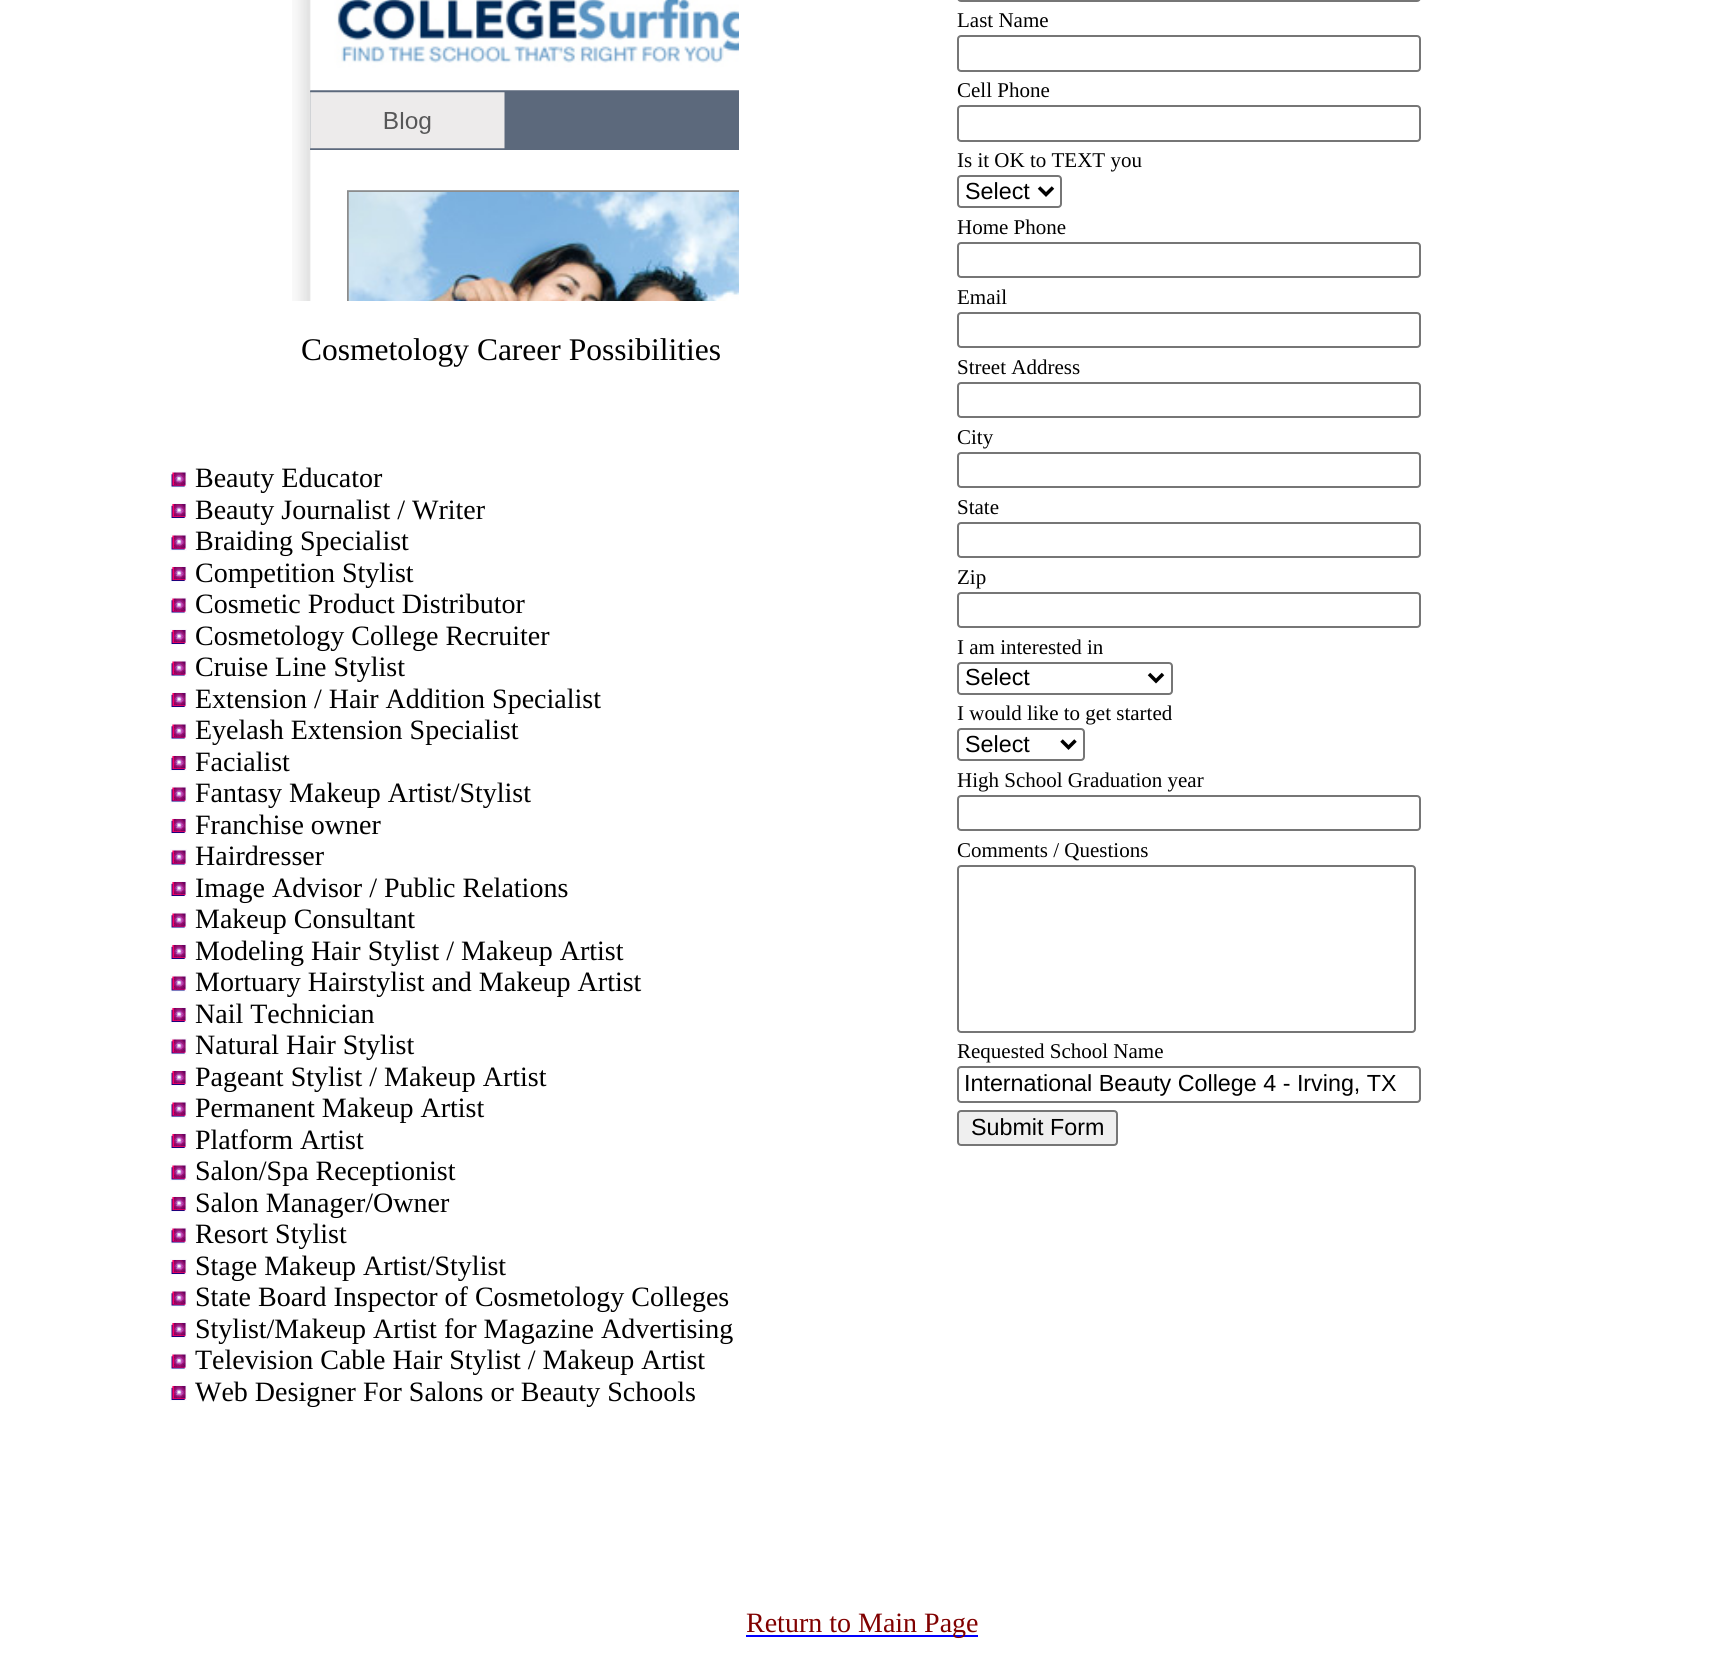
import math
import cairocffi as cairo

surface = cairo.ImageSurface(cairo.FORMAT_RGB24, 1723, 1657)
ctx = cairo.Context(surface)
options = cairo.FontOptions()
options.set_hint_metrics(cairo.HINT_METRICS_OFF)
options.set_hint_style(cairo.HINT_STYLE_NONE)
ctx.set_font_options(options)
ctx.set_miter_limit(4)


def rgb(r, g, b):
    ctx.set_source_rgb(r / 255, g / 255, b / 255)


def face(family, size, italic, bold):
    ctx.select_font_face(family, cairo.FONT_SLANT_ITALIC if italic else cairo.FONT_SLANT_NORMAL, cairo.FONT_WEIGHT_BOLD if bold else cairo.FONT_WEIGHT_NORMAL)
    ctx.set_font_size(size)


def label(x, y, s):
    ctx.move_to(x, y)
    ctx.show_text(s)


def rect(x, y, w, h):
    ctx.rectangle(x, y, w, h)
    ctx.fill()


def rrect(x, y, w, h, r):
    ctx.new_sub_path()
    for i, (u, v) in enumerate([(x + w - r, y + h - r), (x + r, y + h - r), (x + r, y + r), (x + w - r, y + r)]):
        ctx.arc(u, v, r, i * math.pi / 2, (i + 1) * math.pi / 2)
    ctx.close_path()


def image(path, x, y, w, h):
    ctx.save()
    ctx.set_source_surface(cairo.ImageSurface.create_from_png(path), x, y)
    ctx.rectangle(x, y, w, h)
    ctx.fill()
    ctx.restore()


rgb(255, 255, 255)
ctx.paint()
image('image0.png', 292, 0, 447, 301)
face('Liberation Serif', 31.5, 0, 0)
rgb(0, 0, 0)
label(301, 360, 'Cosmetology Career Possibilities')
image('image1.png', 170, 471, 17, 17)
face('Liberation Serif', 28, 0, 0)
label(195, 487, 'Beauty Educator')
image('image2.png', 170, 503, 17, 16)
label(195, 519, 'Beauty Journalist / Writer')
image('image1.png', 170, 534, 17, 17)
label(195, 550, 'Braiding Specialist')
image('image2.png', 170, 566, 17, 16)
label(195, 582, 'Competition Stylist')
image('image1.png', 170, 597, 17, 17)
label(195, 613, 'Cosmetic Product Distributor')
image('image2.png', 170, 629, 17, 16)
label(195, 645, 'Cosmetology College Recruiter')
image('image1.png', 170, 660, 17, 17)
label(195, 676, 'Cruise Line Stylist')
image('image2.png', 170, 692, 17, 16)
label(195, 708, 'Extension / Hair Addition Specialist')
image('image1.png', 170, 723, 17, 17)
label(195, 739, 'Eyelash Extension Specialist')
image('image2.png', 170, 755, 17, 16)
label(195, 771, 'Facialist')
image('image1.png', 170, 786, 17, 17)
label(195, 802, 'Fantasy Makeup Artist/Stylist')
image('image2.png', 170, 818, 17, 16)
label(195, 834, 'Franchise owner')
image('image1.png', 170, 849, 17, 17)
label(195, 865, 'Hairdresser')
image('image2.png', 170, 881, 17, 16)
label(195, 897, 'Image Advisor / Public Relations')
image('image1.png', 170, 912, 17, 17)
label(195, 928, 'Makeup Consultant')
image('image2.png', 170, 944, 17, 16)
label(195, 960, 'Modeling Hair Stylist / Makeup Artist')
image('image1.png', 170, 975, 17, 17)
label(195, 991, 'Mortuary Hairstylist and Makeup Artist')
image('image2.png', 170, 1007, 17, 16)
label(195, 1023, 'Nail Technician')
image('image1.png', 170, 1038, 17, 17)
label(195, 1054, 'Natural Hair Stylist')
image('image2.png', 170, 1070, 17, 16)
label(195, 1086, 'Pageant Stylist / Makeup Artist')
image('image3.png', 170, 1101, 17, 17)
label(195, 1117, 'Permanent Makeup Artist')
image('image2.png', 170, 1133, 17, 16)
label(195, 1149, 'Platform Artist')
image('image1.png', 170, 1164, 17, 17)
label(195, 1180, 'Salon/Spa Receptionist')
image('image2.png', 170, 1196, 17, 16)
label(195, 1212, 'Salon Manager/Owner')
image('image1.png', 170, 1227, 17, 17)
label(195, 1243, 'Resort Stylist')
image('image2.png', 170, 1259, 17, 16)
label(195, 1275, 'Stage Makeup Artist/Stylist')
image('image1.png', 170, 1290, 17, 17)
label(195, 1306, 'State Board Inspector of Cosmetology Colleges')
image('image2.png', 170, 1322, 17, 16)
label(195, 1338, 'Stylist/Makeup Artist for Magazine Advertising')
image('image1.png', 170, 1353, 17, 17)
label(195, 1369, 'Television Cable Hair Stylist / Makeup Artist')
image('image2.png', 170, 1385, 17, 16)
label(195, 1401, 'Web Designer For Salons or Beauty Schools')
rrect(958, -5, 462, 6, 3)
rgb(118, 118, 118)
ctx.stroke()
face('Liberation Serif', 21, 0, 0)
rgb(0, 0, 0)
label(957, 27, 'Last Name')
rrect(958, 36, 462, 35, 3)
rgb(118, 118, 118)
ctx.stroke()
rgb(0, 0, 0)
label(957, 97, 'Cell Phone')
rrect(958, 106, 462, 35, 3)
rgb(118, 118, 118)
ctx.stroke()
rgb(0, 0, 0)
label(957, 167, 'Is it OK to TEXT you')
rrect(958, 176, 103, 31, 3)
rgb(118, 118, 118)
ctx.stroke()
ctx.new_path()
ctx.move_to(1039, 187.5)
ctx.line_to(1046, 194.5)
ctx.line_to(1053, 187.5)
rgb(0, 0, 0)
ctx.set_line_width(3.5)
ctx.stroke()
face('Liberation Sans', 23.3, 0, 0)
label(965, 199, 'Select')
face('Liberation Serif', 21, 0, 0)
label(957, 234, 'Home Phone')
rrect(958, 243, 462, 34, 3)
rgb(118, 118, 118)
ctx.set_line_width(2)
ctx.stroke()
rgb(0, 0, 0)
label(957, 304, 'Email')
rrect(958, 313, 462, 34, 3)
rgb(118, 118, 118)
ctx.stroke()
rgb(0, 0, 0)
label(957, 374, 'Street Address')
rrect(958, 383, 462, 34, 3)
rgb(118, 118, 118)
ctx.stroke()
rgb(0, 0, 0)
label(957, 444, 'City')
rrect(958, 453, 462, 34, 3)
rgb(118, 118, 118)
ctx.stroke()
rgb(0, 0, 0)
label(957, 514, 'State')
rrect(958, 523, 462, 34, 3)
rgb(118, 118, 118)
ctx.stroke()
rgb(0, 0, 0)
label(957, 584, 'Zip')
rrect(958, 593, 462, 34, 3)
rgb(118, 118, 118)
ctx.stroke()
rgb(0, 0, 0)
label(957, 654, 'I am interested in')
rrect(958, 663, 214, 31, 3)
rgb(118, 118, 118)
ctx.stroke()
ctx.new_path()
ctx.move_to(1149, 674)
ctx.line_to(1156, 681)
ctx.line_to(1163, 674)
rgb(0, 0, 0)
ctx.set_line_width(3.5)
ctx.stroke()
face('Liberation Sans', 23.3, 0, 0)
label(965, 685, 'Select')
face('Liberation Serif', 21, 0, 0)
label(957, 720, 'I would like to get started')
rrect(958, 729, 126, 31, 3)
rgb(118, 118, 118)
ctx.set_line_width(2)
ctx.stroke()
ctx.new_path()
ctx.move_to(1061.5, 740.5)
ctx.line_to(1068.5, 747.5)
ctx.line_to(1075.5, 740.5)
rgb(0, 0, 0)
ctx.set_line_width(3.5)
ctx.stroke()
face('Liberation Sans', 23.3, 0, 0)
label(965, 752, 'Select')
face('Liberation Serif', 21, 0, 0)
label(957, 787, 'High School Graduation year')
rrect(958, 796, 462, 34, 3)
rgb(118, 118, 118)
ctx.set_line_width(2)
ctx.stroke()
rgb(0, 0, 0)
label(957, 857, 'Comments / Questions')
rrect(958, 866, 457, 166, 3)
rgb(118, 118, 118)
ctx.stroke()
rgb(0, 0, 0)
label(957, 1058, 'Requested School Name')
rrect(958, 1067, 462, 35, 3)
rgb(118, 118, 118)
ctx.stroke()
face('Liberation Sans', 23.3, 0, 0)
rgb(0, 0, 0)
label(964, 1091, 'International Beauty College 4 - Irving, TX')
rgb(239, 239, 239)
rrect(958, 1111, 159, 34, 3)
ctx.fill_preserve()
rgb(118, 118, 118)
ctx.stroke()
rgb(0, 0, 0)
label(971, 1135, 'Submit Form')
rgb(0, 0, 255)
rect(746, 1635, 232, 2)
face('Liberation Serif', 28, 0, 0)
rgb(128, 0, 0)
label(746, 1632, 'Return to Main Page')
surface.write_to_png('render.png')
